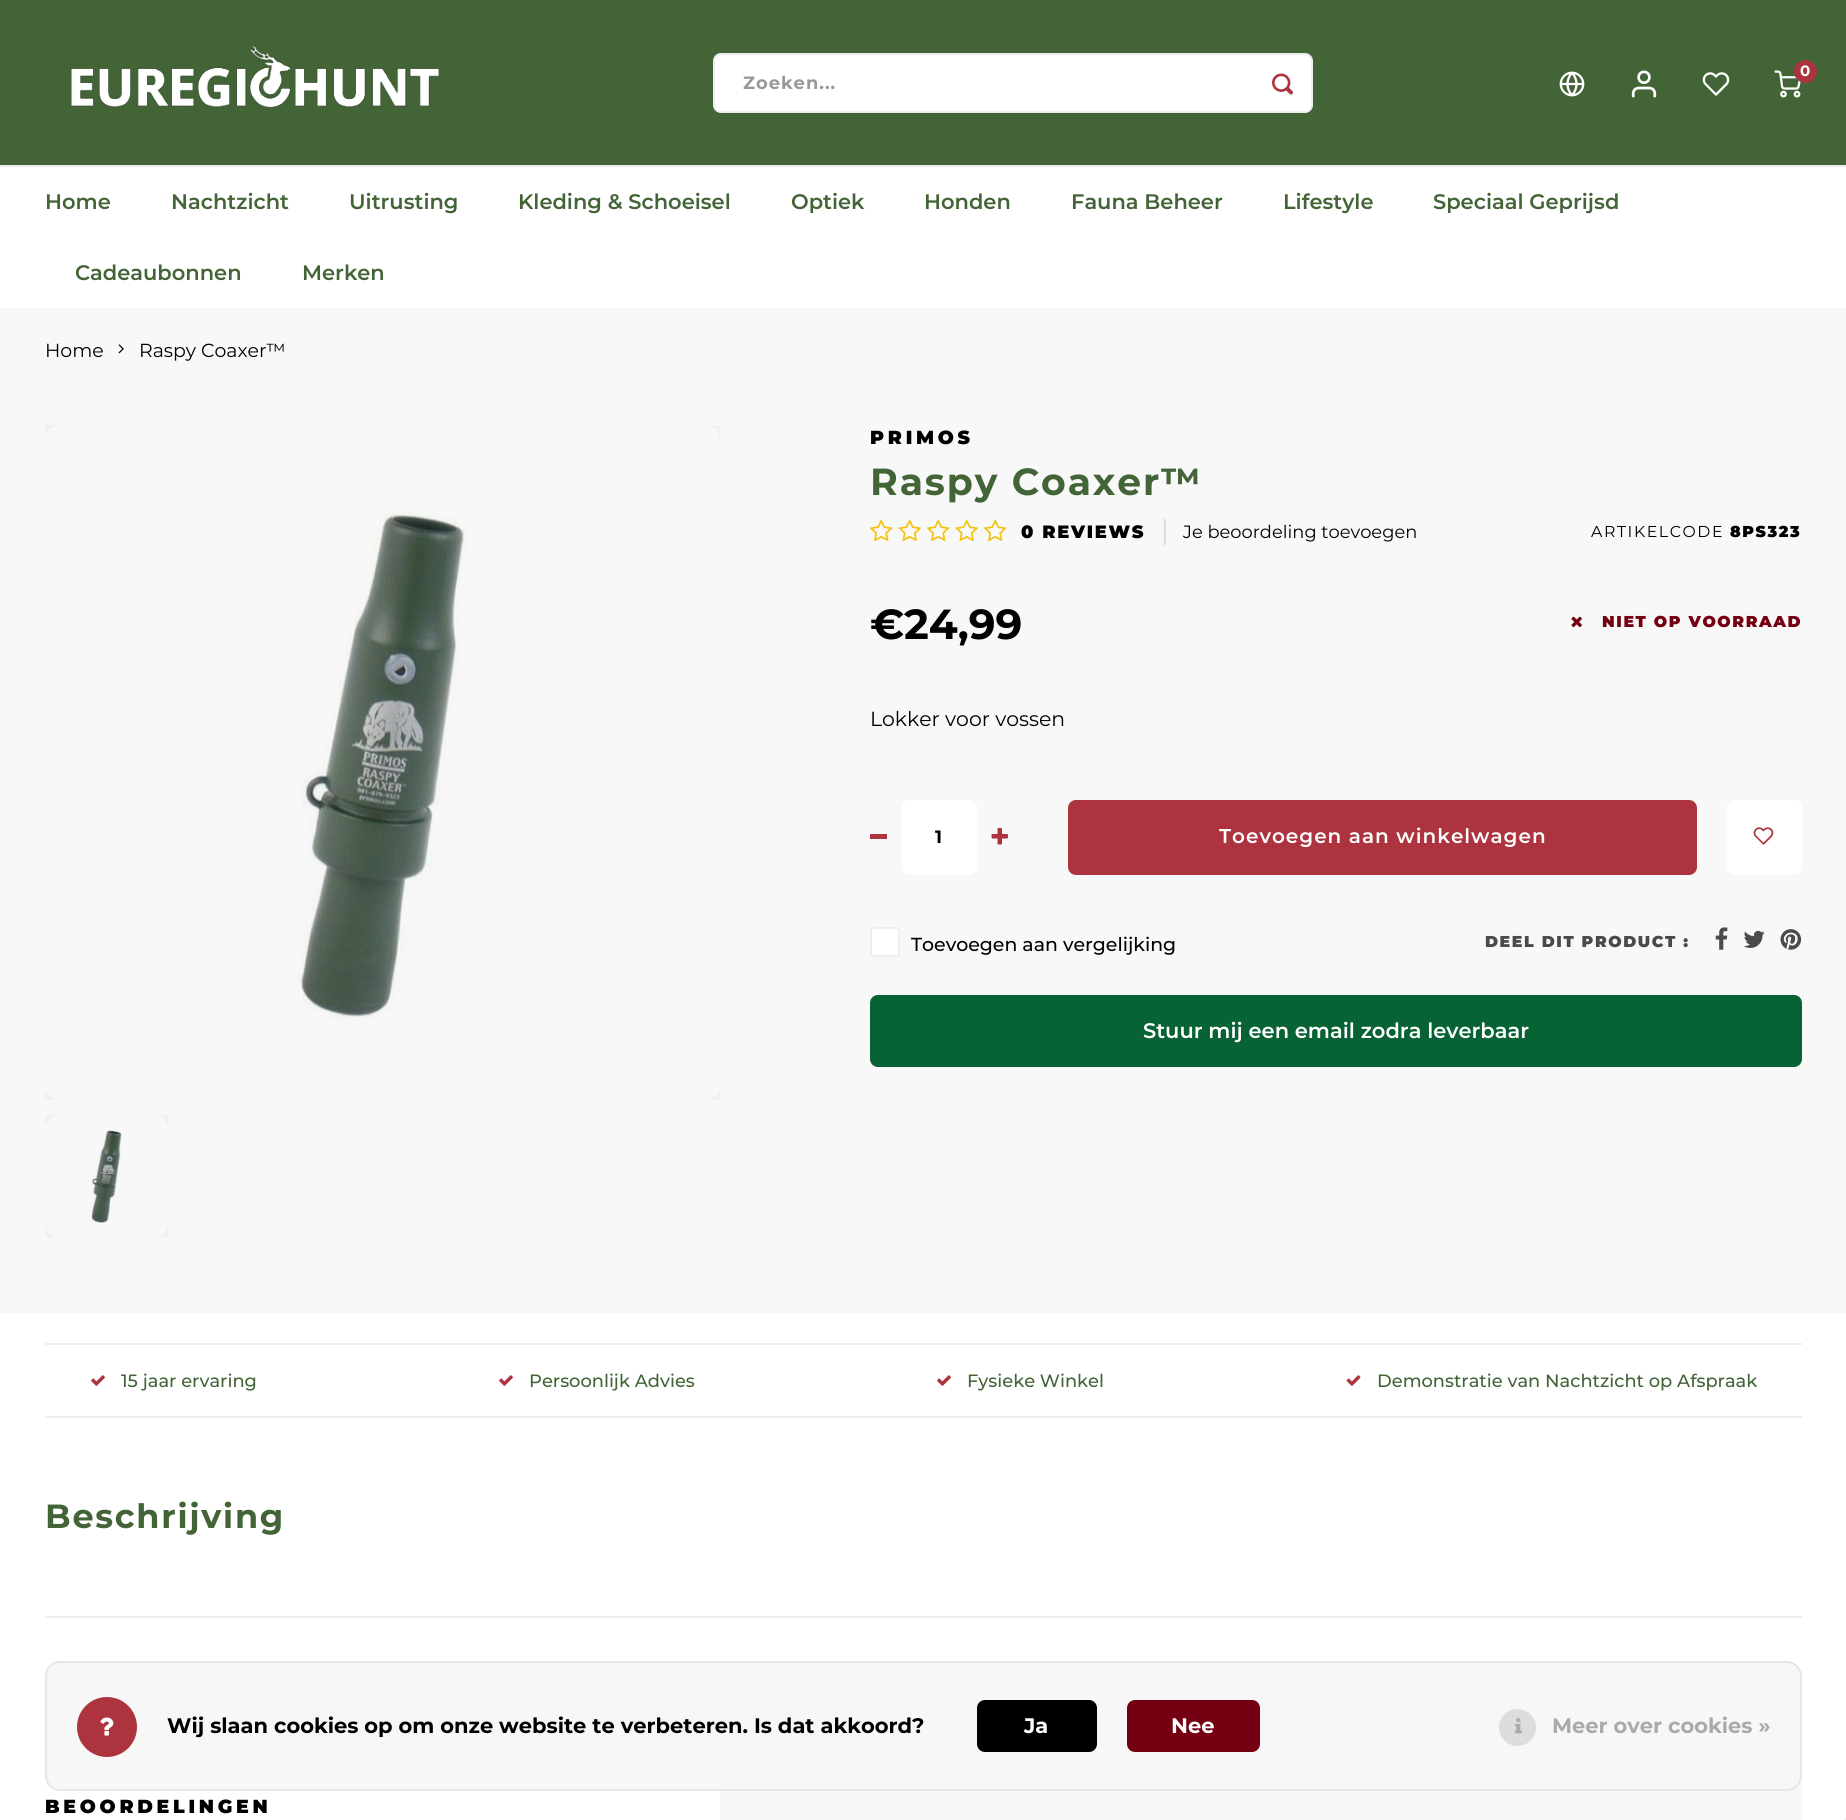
import math
import cairocffi as cairo

surface = cairo.ImageSurface(cairo.FORMAT_RGB24, 1846, 1820)
ctx = cairo.Context(surface)
options = cairo.FontOptions()
options.set_hint_metrics(cairo.HINT_METRICS_OFF)
options.set_hint_style(cairo.HINT_STYLE_NONE)
ctx.set_font_options(options)
ctx.set_miter_limit(4)


def rgb(r, g, b):
    ctx.set_source_rgb(r / 255, g / 255, b / 255)


def face(family, size, italic, bold):
    ctx.select_font_face(family, cairo.FONT_SLANT_ITALIC if italic else cairo.FONT_SLANT_NORMAL, cairo.FONT_WEIGHT_BOLD if bold else cairo.FONT_WEIGHT_NORMAL)
    ctx.set_font_size(size)


def label(x, y, s):
    ctx.move_to(x, y)
    ctx.show_text(s)


def tracked(x, y, s, letter, word):
    ctx.move_to(x, y)
    for ch in s:
        ctx.show_text(ch)
        ctx.rel_move_to(letter + word * (ch == ' '), 0)


def rect(x, y, w, h):
    ctx.rectangle(x, y, w, h)
    ctx.fill()


def rrect(x, y, w, h, r):
    ctx.new_sub_path()
    for i, (u, v) in enumerate([(x + w - r, y + h - r), (x + r, y + h - r), (x + r, y + r), (x + w - r, y + r)]):
        ctx.arc(u, v, r, i * math.pi / 2, (i + 1) * math.pi / 2)
    ctx.close_path()


def image(path, x, y, w, h):
    ctx.save()
    ctx.set_source_surface(cairo.ImageSurface.create_from_png(path), x, y)
    ctx.rectangle(x, y, w, h)
    ctx.fill()
    ctx.restore()


rgb(255, 255, 255)
ctx.paint()
rgb(67, 100, 54)
rect(0, 0, 1846, 165)
image('image0.png', 71, 45, 368, 63)
image('image1.png', 1559, 71, 26, 26)
image('image2.png', 1631, 70, 26, 28)
image('image3.png', 1702, 72, 28, 24)
image('image4.png', 1774, 70, 27, 28)
rgb(173, 52, 62)
ctx.arc(1805.5, 71.5, 11.5, 0, 2 * math.pi)
ctx.fill()
face('Montserrat', 15, 0, 1)
rgb(255, 255, 255)
label(1800, 76, '0')
rrect(713, 53, 600, 60, 8)
ctx.fill()
rrect(714, 54, 598, 58, 7)
ctx.set_source_rgba(0, 0, 0, 0.07)
ctx.stroke()
face('Montserrat', 17.85, 0, 1)
rgb(153, 153, 153)
tracked(743, 89, 'Zoeken...', 1, 0)
image('image5.png', 1272, 73, 21, 22)
rgb(237, 237, 237)
rect(0, 165, 1846, 2)
face('Montserrat SemiBold', 21, 0, 0)
rgb(67, 100, 54)
label(45, 209, 'Home')
label(171, 209, 'Nachtzicht')
label(349, 209, 'Uitrusting')
label(518, 209, 'Kleding & Schoeisel')
label(791, 209, 'Optiek')
label(924, 209, 'Honden')
label(1071, 209, 'Fauna Beheer')
label(1283, 209, 'Lifestyle')
label(1433, 209, 'Speciaal Geprijsd')
label(75, 280, 'Cadeaubonnen')
label(302, 280, 'Merken')
rgb(248, 248, 248)
rect(0, 308, 1846, 1005)
face('Montserrat', 18.9, 0, 0)
rgb(0, 0, 0)
label(45, 357, 'Home')
image('image6.png', 118, 344, 6, 10)
label(139, 357, 'Raspy Coaxer™')
rgb(255, 255, 255)
rrect(45, 425, 675, 675, 15)
ctx.fill()
image('image7.png', 294, 510, 174, 518)
ctx.set_source_rgba(0, 0, 0, 0.03)
rect(45, 425, 675, 675)
rgb(255, 255, 255)
rrect(45, 1115, 123, 123, 15)
ctx.fill()
image('image8.png', 91, 1130, 31, 93)
ctx.set_source_rgba(0, 0, 0, 0.03)
rect(45, 1115, 123, 123)
face('Montserrat Black', 18.9, 0, 0)
rgb(0, 0, 0)
tracked(870, 444, 'PRIMOS', 3.75, 0)
face('Montserrat', 37.75, 0, 1)
rgb(67, 100, 54)
tracked(870, 495, 'Raspy Coaxer™', 1.9, 0)
image('image9.png', 870, 519, 23, 23)
image('image10.png', 898, 519, 23, 23)
image('image9.png', 927, 519, 23, 23)
image('image10.png', 955, 519, 23, 23)
image('image9.png', 984, 519, 23, 23)
rgb(221, 221, 221)
rect(1164, 519, 2, 26)
face('Montserrat Black', 17.85, 0, 0)
rgb(0, 0, 0)
tracked(1021, 538, '0 REVIEWS', 1.75, 0)
face('Montserrat', 17.85, 0, 0)
label(1183, 538, 'Je beoordeling toevoegen')
face('Montserrat', 15.75, 0, 0)
tracked(1591, 537, 'ARTIKELCODE', 1.6, 0)
face('Montserrat Black', 15.75, 0, 0)
tracked(1730, 537, '8PS323', 1.6, 0)
face('Montserrat', 42, 0, 1)
label(870, 639, '€24,99')
image('image11.png', 1571, 616, 11, 12)
face('Montserrat Black', 15.75, 0, 0)
rgb(117, 0, 17)
tracked(1602, 627, 'NIET OP VOORRAAD', 1.6, 0)
face('Montserrat', 20.4, 0, 0)
rgb(0, 0, 0)
label(870, 726, 'Lokker voor vossen')
rgb(173, 52, 62)
rect(870, 834, 17, 5)
rgb(255, 255, 255)
rrect(902, 800, 75, 75, 8)
ctx.fill()
face('Montserrat', 17.85, 0, 1)
rgb(0, 0, 0)
tracked(935, 843, '1', 1, 0)
image('image12.png', 991, 828, 17, 17)
rgb(173, 52, 62)
rrect(1068, 800, 629, 75, 8)
ctx.fill()
face('Montserrat SemiBold', 20, 0, 0)
rgb(255, 255, 255)
tracked(1219, 843, 'Toevoegen aan winkelwagen', 1, 0)
rrect(1727, 800, 75, 75, 8)
ctx.fill()
image('image13.png', 1753, 827, 21, 18)
rrect(870, 927, 30, 30, 3)
ctx.fill()
rrect(871, 928, 28, 28, 2)
ctx.set_source_rgba(0, 0, 0, 0.07)
ctx.stroke()
face('Montserrat Medium', 18.9, 0, 0)
rgb(0, 0, 0)
label(911, 951, 'Toevoegen aan vergelijking')
face('Montserrat Black', 15.75, 0, 0)
rgb(74, 74, 74)
tracked(1485, 947, 'DEEL DIT PRODUCT :', 1.6, 0)
image('image14.png', 1715, 927, 13, 23)
image('image15.png', 1743, 930, 22, 18)
image('image16.png', 1780, 929, 22, 21)
rgb(8, 99, 52)
rrect(870, 995, 932, 72, 8)
ctx.fill()
face('Montserrat SemiBold', 21, 0, 0)
rgb(255, 255, 255)
label(1143, 1038, 'Stuur mij een email zodra leverbaar')
rgb(237, 237, 237)
rect(45, 1343, 1757, 2)
rect(45, 1416, 1757, 2)
image('image17.png', 91, 1375, 14, 11)
face('Montserrat Medium', 17.85, 0, 0)
rgb(67, 100, 54)
label(121, 1387, '15 jaar ervaring')
image('image17.png', 499, 1375, 14, 11)
label(529, 1387, 'Persoonlijk Advies')
image('image17.png', 937, 1375, 14, 11)
label(967, 1387, 'Fysieke Winkel')
image('image18.png', 1346, 1375, 15, 11)
label(1377, 1387, 'Demonstratie van Nachtzicht op Afspraak')
rgb(237, 237, 237)
rect(45, 1616, 1757, 2)
face('Montserrat', 33.5, 0, 1)
rgb(67, 100, 54)
tracked(45, 1528, 'Beschrijving', 1.75, 0)
face('Montserrat Black', 18.9, 0, 0)
rgb(0, 0, 0)
tracked(45, 1813, 'BEOORDELINGEN', 3.75, 0)
rgb(247, 247, 247)
rrect(720, 1767, 1082, 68, 15)
ctx.fill()
rrect(45, 1661, 1757, 130, 15)
ctx.fill()
rrect(46, 1662, 1755, 128, 14)
ctx.set_source_rgba(0, 0, 0, 0.07)
ctx.stroke()
rgb(173, 52, 62)
ctx.arc(107, 1727, 30, 0, 2 * math.pi)
ctx.fill()
image('image19.png', 100, 1717, 14, 19)
face('Montserrat', 21, 0, 1)
rgb(0, 0, 0)
label(167, 1733, 'Wij slaan cookies op om onze website te verbeteren. Is dat akkoord?')
rrect(977, 1700, 120, 52, 8)
ctx.fill()
rgb(255, 255, 255)
label(1024, 1733, 'Ja')
rgb(117, 0, 17)
rrect(1127, 1700, 133, 52, 8)
ctx.fill()
rgb(255, 255, 255)
label(1171, 1733, 'Nee')
rgb(221, 221, 221)
ctx.new_path()
ctx.arc(1517.5, 1727.5, 18.5, 0, 2 * math.pi)
ctx.fill()
image('image20.png', 1515, 1718, 7, 16)
rgb(170, 170, 170)
label(1552, 1733, 'Meer over cookies »')
rgb(245, 245, 245)
rect(1844, 1818, 2, 2)
surface.write_to_png('render.png')
